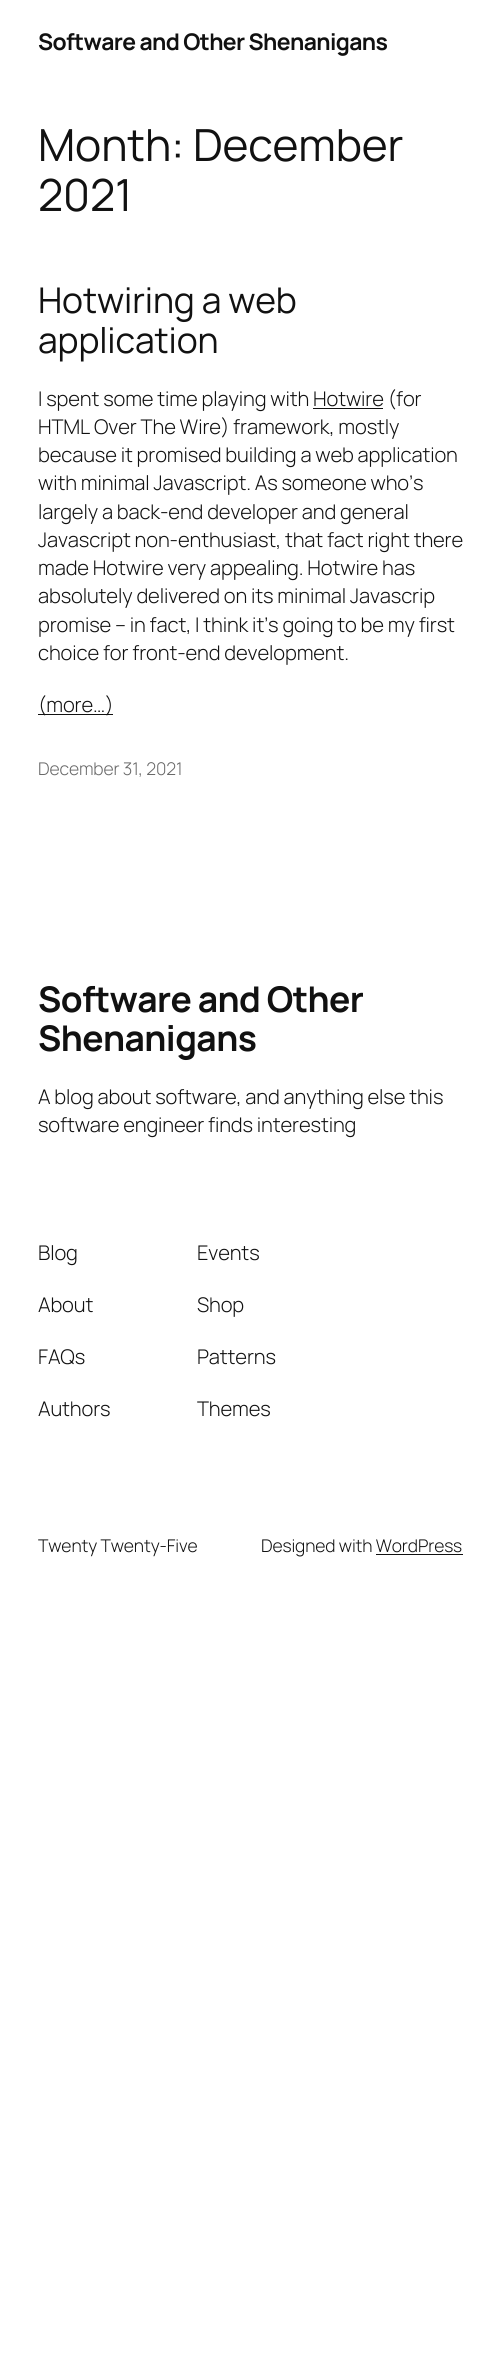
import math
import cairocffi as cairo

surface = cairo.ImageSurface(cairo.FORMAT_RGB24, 499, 2366)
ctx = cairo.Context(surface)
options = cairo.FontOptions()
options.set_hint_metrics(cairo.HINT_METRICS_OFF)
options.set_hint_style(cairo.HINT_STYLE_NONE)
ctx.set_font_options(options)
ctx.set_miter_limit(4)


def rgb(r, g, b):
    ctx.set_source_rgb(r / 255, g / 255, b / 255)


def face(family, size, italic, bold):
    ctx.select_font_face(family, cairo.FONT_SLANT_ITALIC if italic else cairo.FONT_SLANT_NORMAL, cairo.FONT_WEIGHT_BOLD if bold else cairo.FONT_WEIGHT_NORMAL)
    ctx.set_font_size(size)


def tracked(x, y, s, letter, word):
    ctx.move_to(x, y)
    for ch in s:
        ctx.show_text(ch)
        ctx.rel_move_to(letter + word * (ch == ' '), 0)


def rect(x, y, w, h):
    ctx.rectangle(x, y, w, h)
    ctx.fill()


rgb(255, 255, 255)
ctx.paint()
face('Manrope', 22.9, 0, 1)
rgb(17, 17, 17)
tracked(38, 50, 'Software and Other Shenanigans', -0.6, 0)
face('Manrope', 44.25, 0, 0)
tracked(38, 161, 'Month: December', -0.12, 0)
tracked(38, 211, '2021', -0.12, 0)
face('Manrope', 35.4, 0, 0)
tracked(38, 313, 'Hotwiring a web', -0.12, 0)
tracked(38, 353, 'application', -0.12, 0)
face('Manrope Light', 20.2, 0, 0)
tracked(38, 406, 'I spent some time playing with Hotwire (for', -0.12, 0)
rect(313, 408, 70, 1)
tracked(38, 434, 'HTML Over The Wire) framework, mostly', -0.12, 0)
tracked(38, 462, 'because it promised building a web application', -0.12, 0)
tracked(38, 490, 'with minimal Javascript. As someone who’s', -0.12, 0)
tracked(38, 519, 'largely a back-end developer and general', -0.12, 0)
tracked(38, 547, 'Javascript non-enthusiast, that fact right there', -0.12, 0)
tracked(38, 575, 'made Hotwire very appealing. Hotwire has', -0.12, 0)
tracked(38, 603, 'absolutely delivered on its minimal Javascrip', -0.12, 0)
tracked(38, 632, 'promise – in fact, I think it’s going to be my first', -0.12, 0)
tracked(38, 660, 'choice for front-end development.', -0.12, 0)
rect(38, 714, 75, 1)
tracked(38, 712, '(more…)', -0.12, 0)
face('Manrope Light', 17.5, 0, 0)
rgb(104, 104, 104)
tracked(38, 775, 'December 31, 2021', -0.12, 0)
face('Manrope', 35.4, 0, 1)
rgb(17, 17, 17)
tracked(38, 1012, 'Software and Other', -0.6, 0)
tracked(38, 1051, 'Shenanigans', -0.6, 0)
face('Manrope Light', 20.2, 0, 0)
tracked(38, 1104, 'A blog about software, and anything else this', -0.12, 0)
tracked(38, 1132, 'software engineer finds interesting', -0.12, 0)
tracked(38, 1260, 'Blog', -0.12, 0)
tracked(38, 1312, 'About', -0.12, 0)
tracked(38, 1364, 'FAQs', -0.12, 0)
tracked(38, 1416, 'Authors', -0.12, 0)
tracked(197, 1260, 'Events', -0.12, 0)
tracked(197, 1312, 'Shop', -0.12, 0)
tracked(197, 1364, 'Patterns', -0.12, 0)
tracked(197, 1416, 'Themes', -0.12, 0)
face('Manrope Light', 17.5, 0, 0)
tracked(38, 1552, 'Twenty Twenty-Five', -0.12, 0)
tracked(261, 1552, 'Designed with WordPress', -0.12, 0)
rect(376, 1554, 87, 1)
surface.write_to_png('render.png')
